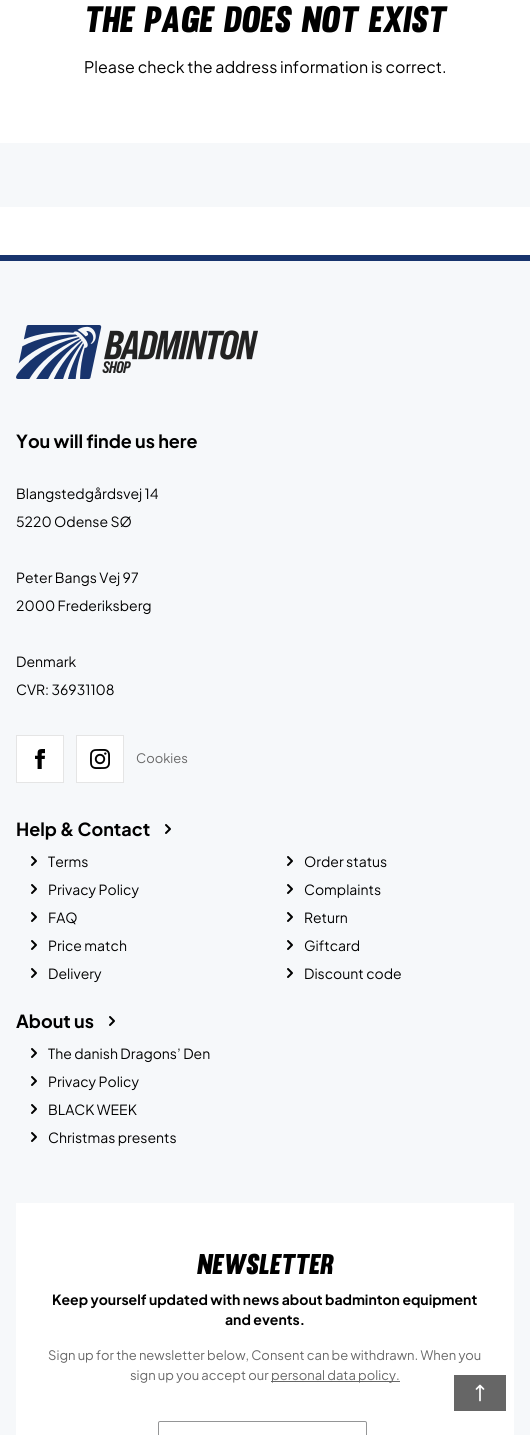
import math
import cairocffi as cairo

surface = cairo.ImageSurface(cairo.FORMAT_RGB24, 530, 1435)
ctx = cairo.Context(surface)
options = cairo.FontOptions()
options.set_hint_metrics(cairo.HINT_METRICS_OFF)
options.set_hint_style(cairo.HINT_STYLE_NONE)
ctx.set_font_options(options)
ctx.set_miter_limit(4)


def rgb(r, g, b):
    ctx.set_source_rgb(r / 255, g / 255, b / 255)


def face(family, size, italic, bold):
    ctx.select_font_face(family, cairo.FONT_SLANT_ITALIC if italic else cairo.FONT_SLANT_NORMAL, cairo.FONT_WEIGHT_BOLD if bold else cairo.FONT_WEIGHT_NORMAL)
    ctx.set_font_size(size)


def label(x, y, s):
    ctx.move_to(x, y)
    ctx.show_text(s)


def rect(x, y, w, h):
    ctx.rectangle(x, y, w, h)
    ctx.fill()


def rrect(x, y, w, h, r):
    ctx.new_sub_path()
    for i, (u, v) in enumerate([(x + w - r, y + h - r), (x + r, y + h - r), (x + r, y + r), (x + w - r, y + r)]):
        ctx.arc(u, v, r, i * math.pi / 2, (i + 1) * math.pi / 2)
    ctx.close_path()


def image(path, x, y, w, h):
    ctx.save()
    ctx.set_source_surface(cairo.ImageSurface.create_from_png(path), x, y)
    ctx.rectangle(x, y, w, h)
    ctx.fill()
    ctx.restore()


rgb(255, 255, 255)
ctx.paint()
rgb(246, 248, 250)
rect(0, 143, 530, 64)
face('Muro', 36, 1, 0)
rgb(0, 0, 0)
label(84, 32, 'The page does not exist')
face('Plus Jakarta Sans', 16, 0, 0)
label(84, 73, 'Please check the address information is correct.')
rgb(246, 248, 250)
rect(0, 261, 530, 1174)
rgb(24, 52, 109)
rect(0, 255, 530, 6)
image('image0.png', 16, 325, 242, 54)
face('Plus Jakarta Sans', 18, 0, 1)
rgb(0, 0, 0)
label(16, 448, 'You will finde us here')
face('Plus Jakarta Sans', 14, 0, 0)
label(16, 499, 'Blangstedgårdsvej 14')
label(16, 527, '5220 Odense SØ')
label(16, 583, 'Peter Bangs Vej 97')
label(16, 611, '2000 Frederiksberg')
label(16, 667, 'Denmark')
label(16, 695, 'CVR: 36931108')
rgb(255, 255, 255)
ctx.rectangle(16.5, 735.5, 47, 47)
ctx.fill_preserve()
rgb(229, 229, 229)
ctx.set_line_width(1)
ctx.stroke()
image('image1.png', 35, 749, 10, 20)
rgb(255, 255, 255)
ctx.rectangle(76.5, 735.5, 47, 47)
ctx.fill_preserve()
rgb(229, 229, 229)
ctx.stroke()
image('image2.png', 90, 749, 20, 20)
face('Plus Jakarta Sans', 13, 0, 0)
rgb(103, 103, 103)
label(136, 763, 'Cookies')
face('Plus Jakarta Sans', 18, 0, 1)
rgb(0, 0, 0)
label(16, 836, 'Help & Contact')
image('image3.png', 165, 824, 6, 10)
image('image3.png', 31, 856, 6, 10)
face('Plus Jakarta Sans', 14, 0, 0)
label(48, 867, 'Terms')
image('image3.png', 287, 856, 6, 10)
label(304, 867, 'Order status')
image('image3.png', 31, 884, 6, 10)
label(48, 895, 'Privacy Policy')
image('image3.png', 287, 884, 6, 10)
label(304, 895, 'Complaints')
image('image3.png', 31, 912, 6, 10)
label(48, 923, 'FAQ')
image('image3.png', 287, 912, 6, 10)
label(304, 923, 'Return')
image('image3.png', 31, 940, 6, 10)
label(48, 951, 'Price match')
image('image3.png', 287, 940, 6, 10)
label(304, 951, 'Giftcard')
image('image3.png', 31, 968, 6, 10)
label(48, 979, 'Delivery')
image('image3.png', 287, 968, 6, 10)
label(304, 979, 'Discount code')
face('Plus Jakarta Sans', 18, 0, 1)
label(16, 1028, 'About us')
image('image3.png', 109, 1016, 6, 10)
image('image3.png', 31, 1048, 6, 10)
face('Plus Jakarta Sans', 14, 0, 0)
label(48, 1059, 'The danish Dragons’ Den')
image('image3.png', 31, 1076, 6, 10)
label(48, 1087, 'Privacy Policy')
image('image3.png', 31, 1104, 6, 10)
label(48, 1115, 'BLACK WEEK')
image('image3.png', 31, 1132, 6, 10)
label(48, 1143, 'Christmas presents')
rgb(255, 255, 255)
rect(16, 1203, 498, 232)
face('Muro', 28, 1, 0)
rgb(0, 0, 0)
label(197, 1274, 'Newsletter')
face('Plus Jakarta Sans', 14, 0, 1)
label(52, 1305, 'Keep yourself updated with news about badminton equipment')
label(225, 1325, 'and events.')
face('Plus Jakarta Sans', 13, 0, 0)
rgb(103, 103, 103)
label(48, 1360, 'Sign up for the newsletter below, Consent can be withdrawn. When you')
label(130, 1380, 'sign up you accept our')
rect(271, 1381, 129, 1)
label(271, 1380, 'personal data policy.')
rrect(158.5, 1421.5, 208, 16, 1.5)
rgb(148, 149, 150)
ctx.stroke()
rgb(102, 102, 102)
rect(454, 1375, 52, 36)
ctx.new_path()
ctx.move_to(476.5, 1389)
ctx.line_to(480, 1385.5)
ctx.move_to(480, 1385.5)
ctx.line_to(483.5, 1389)
ctx.move_to(480, 1385.5)
ctx.line_to(480, 1400.5)
rgb(255, 255, 255)
ctx.set_line_width(1.7)
ctx.set_line_cap(cairo.LINE_CAP_ROUND)
ctx.set_line_join(cairo.LINE_JOIN_ROUND)
ctx.stroke()
surface.write_to_png('render.png')
